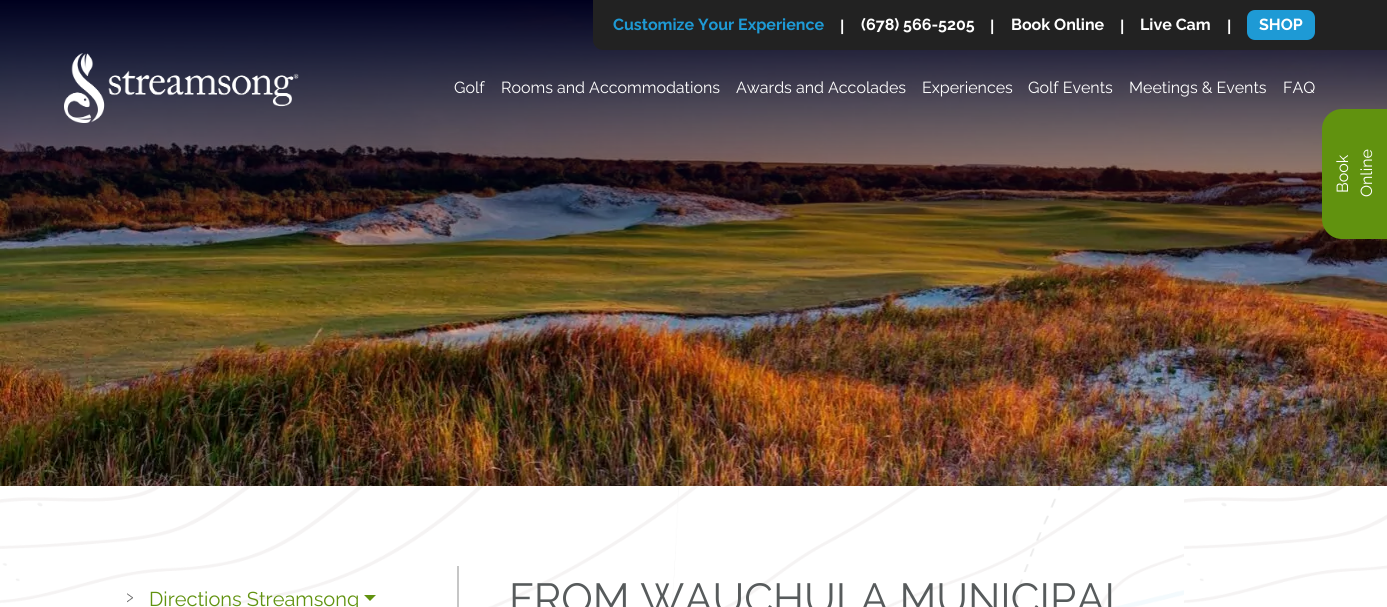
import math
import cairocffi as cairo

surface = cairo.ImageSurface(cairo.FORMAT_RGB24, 1387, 607)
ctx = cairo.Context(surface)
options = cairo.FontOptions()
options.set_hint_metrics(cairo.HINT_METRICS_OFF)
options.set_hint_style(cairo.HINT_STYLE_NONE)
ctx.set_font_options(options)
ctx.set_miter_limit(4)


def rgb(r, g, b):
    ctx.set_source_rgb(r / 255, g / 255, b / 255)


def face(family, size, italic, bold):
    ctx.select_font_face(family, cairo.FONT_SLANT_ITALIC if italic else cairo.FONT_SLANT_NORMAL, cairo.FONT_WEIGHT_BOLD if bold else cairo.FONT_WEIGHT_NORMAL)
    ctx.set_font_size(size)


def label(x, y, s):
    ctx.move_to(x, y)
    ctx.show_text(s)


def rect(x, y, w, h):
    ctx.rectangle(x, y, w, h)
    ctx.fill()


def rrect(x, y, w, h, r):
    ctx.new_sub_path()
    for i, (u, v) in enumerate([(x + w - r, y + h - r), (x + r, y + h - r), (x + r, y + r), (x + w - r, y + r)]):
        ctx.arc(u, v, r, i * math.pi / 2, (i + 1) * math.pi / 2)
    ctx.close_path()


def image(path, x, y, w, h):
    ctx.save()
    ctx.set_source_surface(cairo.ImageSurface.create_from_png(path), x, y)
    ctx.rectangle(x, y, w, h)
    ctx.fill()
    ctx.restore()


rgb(255, 255, 255)
ctx.paint()
image('image2.png', 0, 0, 1387, 486)
rgb(34, 34, 34)
ctx.new_path()
ctx.move_to(593, 0)
ctx.line_to(1387, 0)
ctx.line_to(1387, 50)
ctx.line_to(603, 50)
ctx.curve_to(597.5, 50, 593, 45.5, 593, 40)
ctx.close_path()
ctx.fill()
face('Raleway', 16, 0, 1)
rgb(30, 154, 213)
label(613, 30, 'Customize Your Experience')
rgb(255, 255, 255)
label(840, 32, '|')
label(861, 30, '(678) 566-5205')
label(990, 32, '|')
label(1011, 30, 'Book Online')
label(1120, 32, '|')
label(1140, 30, 'Live Cam')
label(1227, 32, '|')
rgb(30, 154, 213)
rrect(1247, 10, 68, 30, 8)
ctx.fill()
rgb(255, 255, 255)
label(1259, 30, 'SHOP')
image('image0.png', 64, 53, 235, 70)
face('Raleway', 16, 0, 0)
label(454, 93, 'Golf')
label(501, 93, 'Rooms and Accommodations')
label(736, 93, 'Awards and Accolades')
label(922, 93, 'Experiences')
label(1028, 93, 'Golf Events')
label(1129, 93, 'Meetings & Events')
label(1283, 93, 'FAQ')
image('image1.png', 0, 486, 1387, 121)
rgb(198, 198, 198)
rect(457, 566, 2, 41)
image('image3.png', 127, 593, 6, 10)
face('Raleway', 20, 0, 0)
rgb(97, 146, 15)
label(149, 606, 'Directions Streamsong')
ctx.new_path()
ctx.move_to(364, 595)
ctx.line_to(376, 595)
ctx.line_to(370, 601)
ctx.close_path()
ctx.fill()
face('Raleway', 42, 0, 0)
rgb(87, 91, 92)
label(509, 613, 'FROM WAUCHULA MUNICIPAL')
rgb(97, 146, 15)
ctx.new_path()
ctx.move_to(1342, 109)
ctx.line_to(1387, 109)
ctx.line_to(1387, 239)
ctx.line_to(1342, 239)
ctx.curve_to(1331, 239, 1322, 230, 1322, 219)
ctx.line_to(1322, 129)
ctx.curve_to(1322, 118, 1331, 109, 1342, 109)
ctx.close_path()
ctx.fill()
face('Raleway', 16, 0, 0)
rgb(255, 255, 255)
ctx.save()
ctx.translate(1348, 193)
ctx.rotate(-90 * math.pi / 180)
label(0, 0, 'Book')
ctx.restore()
ctx.save()
ctx.translate(1372, 197)
ctx.rotate(-90 * math.pi / 180)
label(0, 0, 'Online')
ctx.restore()
surface.write_to_png('render.png')
